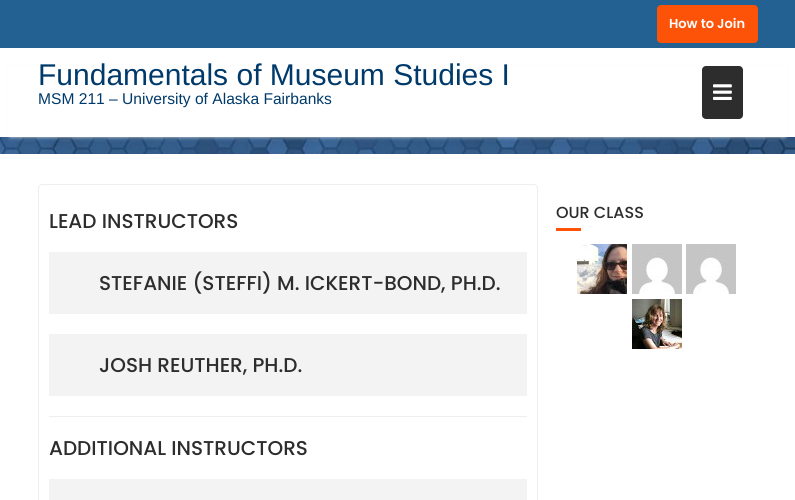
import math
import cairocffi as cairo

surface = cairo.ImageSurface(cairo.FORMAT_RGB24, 795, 500)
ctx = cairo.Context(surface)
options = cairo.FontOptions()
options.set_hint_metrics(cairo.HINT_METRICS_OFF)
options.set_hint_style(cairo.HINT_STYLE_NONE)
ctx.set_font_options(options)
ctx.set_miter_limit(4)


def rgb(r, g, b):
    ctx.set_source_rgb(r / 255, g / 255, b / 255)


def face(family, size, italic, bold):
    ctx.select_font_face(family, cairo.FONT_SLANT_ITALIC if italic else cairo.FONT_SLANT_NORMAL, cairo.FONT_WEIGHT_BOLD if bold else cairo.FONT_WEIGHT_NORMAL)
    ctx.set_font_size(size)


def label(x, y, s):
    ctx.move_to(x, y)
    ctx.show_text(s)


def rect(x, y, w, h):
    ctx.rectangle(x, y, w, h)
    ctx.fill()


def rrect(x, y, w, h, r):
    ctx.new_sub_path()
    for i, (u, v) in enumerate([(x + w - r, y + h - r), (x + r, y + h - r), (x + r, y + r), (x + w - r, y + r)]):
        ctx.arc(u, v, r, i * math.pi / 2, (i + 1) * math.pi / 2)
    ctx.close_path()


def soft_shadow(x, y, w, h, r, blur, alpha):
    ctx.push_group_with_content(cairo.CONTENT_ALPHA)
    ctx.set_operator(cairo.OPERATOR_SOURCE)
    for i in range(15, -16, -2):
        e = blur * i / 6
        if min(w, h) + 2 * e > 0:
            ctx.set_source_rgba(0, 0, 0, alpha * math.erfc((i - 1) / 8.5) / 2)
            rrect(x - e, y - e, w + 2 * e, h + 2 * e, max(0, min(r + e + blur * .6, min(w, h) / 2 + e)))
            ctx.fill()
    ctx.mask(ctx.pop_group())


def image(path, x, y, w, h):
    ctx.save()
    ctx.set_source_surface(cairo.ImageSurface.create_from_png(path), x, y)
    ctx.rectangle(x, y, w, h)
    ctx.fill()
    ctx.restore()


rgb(255, 255, 255)
ctx.paint()
rgb(35, 97, 146)
rect(0, 0, 795, 48)
rgb(253, 83, 8)
rrect(658, 6, 99, 36, 3)
ctx.fill_preserve()
ctx.stroke()
face('Poppins SemiBold', 13, 0, 0)
rgb(255, 255, 255)
label(669, 28, 'How to Join')
image('image1.png', 0, 137, 795, 17)
rgb(238, 238, 238)
soft_shadow(10, 68, 775, 69, 0, 2, 0.9)
rgb(255, 255, 255)
rect(8, 66, 779, 71)
face('Liberation Sans', 30, 0, 0)
rgb(0, 58, 106)
label(38, 85, 'Fundamentals of Museum Studies I')
rgb(45, 45, 45)
rrect(702, 66, 41, 53, 4)
ctx.fill()
image('image0.png', 713, 84, 19, 16)
face('Liberation Sans', 15.6, 0, 0)
rgb(0, 58, 106)
label(38, 104, 'MSM 211 – University of Alaska Fairbanks')
rrect(38.5, 184.5, 499, 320, 3.5)
rgb(238, 238, 238)
ctx.set_line_width(1)
ctx.stroke()
face('Poppins Medium', 20, 0, 0)
rgb(45, 45, 45)
label(49, 228, 'LEAD INSTRUCTORS')
rgb(243, 243, 243)
rect(49, 252, 478, 62)
rgb(45, 45, 45)
label(99, 290, 'STEFANIE (STEFFI) M. ICKERT-BOND, PH.D.')
rgb(243, 243, 243)
rect(49, 334, 478, 62)
rgb(45, 45, 45)
label(99, 372, 'JOSH REUTHER, PH.D.')
rgb(238, 238, 238)
rect(49, 416, 478, 1)
rgb(45, 45, 45)
label(49, 455, 'ADDITIONAL INSTRUCTORS')
rgb(243, 243, 243)
rect(49, 479, 478, 21)
face('Poppins Medium', 16, 0, 0)
rgb(45, 45, 45)
label(556, 218, 'OUR CLASS')
rgb(253, 83, 8)
rect(556, 228, 25, 3)
image('image2.png', 577, 244, 50, 50)
image('image3.png', 632, 244, 50, 50)
image('image3.png', 686, 244, 50, 50)
image('image4.png', 632, 299, 50, 50)
surface.write_to_png('render.png')
